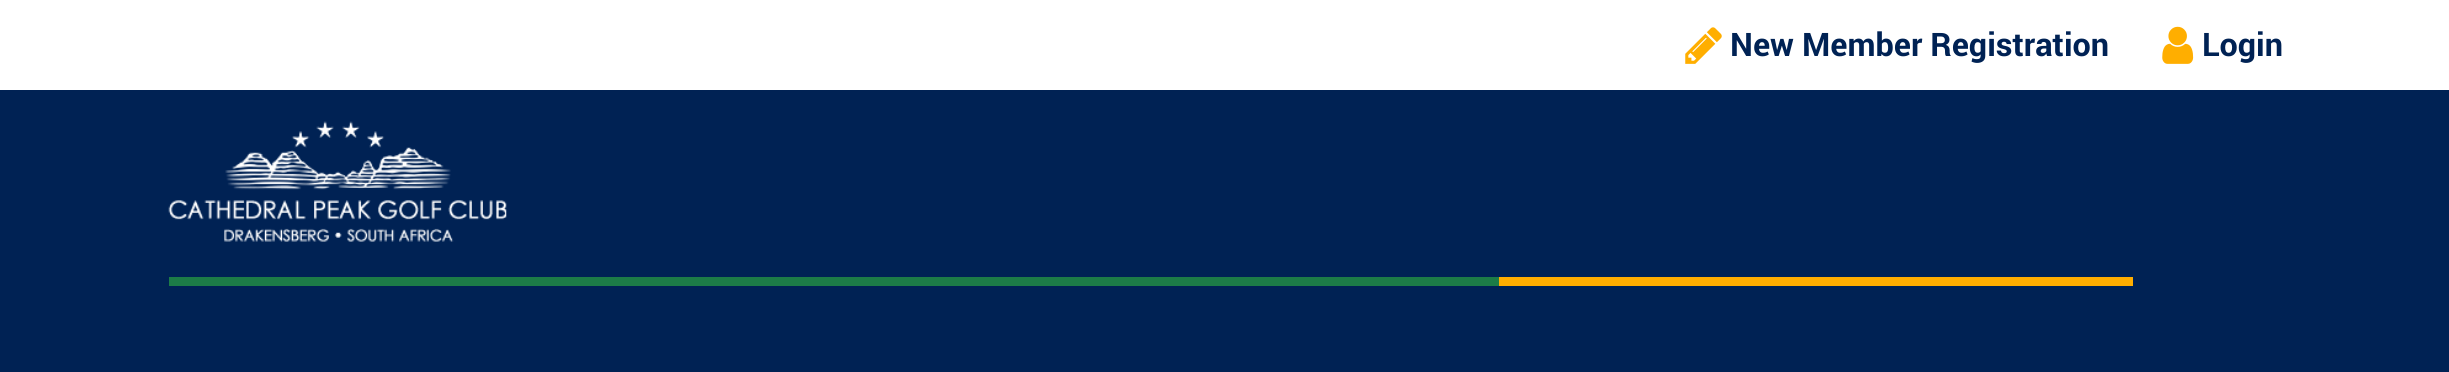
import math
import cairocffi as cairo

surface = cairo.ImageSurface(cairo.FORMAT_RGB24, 2449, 372)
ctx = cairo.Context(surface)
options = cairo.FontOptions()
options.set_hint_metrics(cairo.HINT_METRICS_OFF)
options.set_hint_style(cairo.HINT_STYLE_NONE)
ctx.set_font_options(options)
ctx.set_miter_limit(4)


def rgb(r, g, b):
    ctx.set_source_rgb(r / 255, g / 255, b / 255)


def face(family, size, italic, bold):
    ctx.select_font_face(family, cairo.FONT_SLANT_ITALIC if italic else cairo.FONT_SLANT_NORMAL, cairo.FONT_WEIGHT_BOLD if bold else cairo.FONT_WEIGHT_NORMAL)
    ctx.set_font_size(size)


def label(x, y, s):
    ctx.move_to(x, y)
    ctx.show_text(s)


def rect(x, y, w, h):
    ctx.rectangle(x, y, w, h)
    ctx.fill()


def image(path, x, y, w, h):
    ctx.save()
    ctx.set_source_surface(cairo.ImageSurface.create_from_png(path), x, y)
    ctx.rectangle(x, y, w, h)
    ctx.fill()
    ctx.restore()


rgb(255, 255, 255)
ctx.paint()
image('image0.png', 1685, 27, 37, 37)
face('roboto', 32.4, 0, 1)
rgb(0, 34, 84)
label(1730, 56, 'New Member Registration')
image('image1.png', 2162, 26, 32, 38)
label(2202, 56, 'Login')
rect(0, 90, 2449, 282)
image('image2.png', 168, 121, 339, 121)
rgb(28, 124, 71)
rect(169, 277, 1330, 9)
rgb(255, 174, 0)
rect(1499, 277, 634, 9)
surface.write_to_png('render.png')
